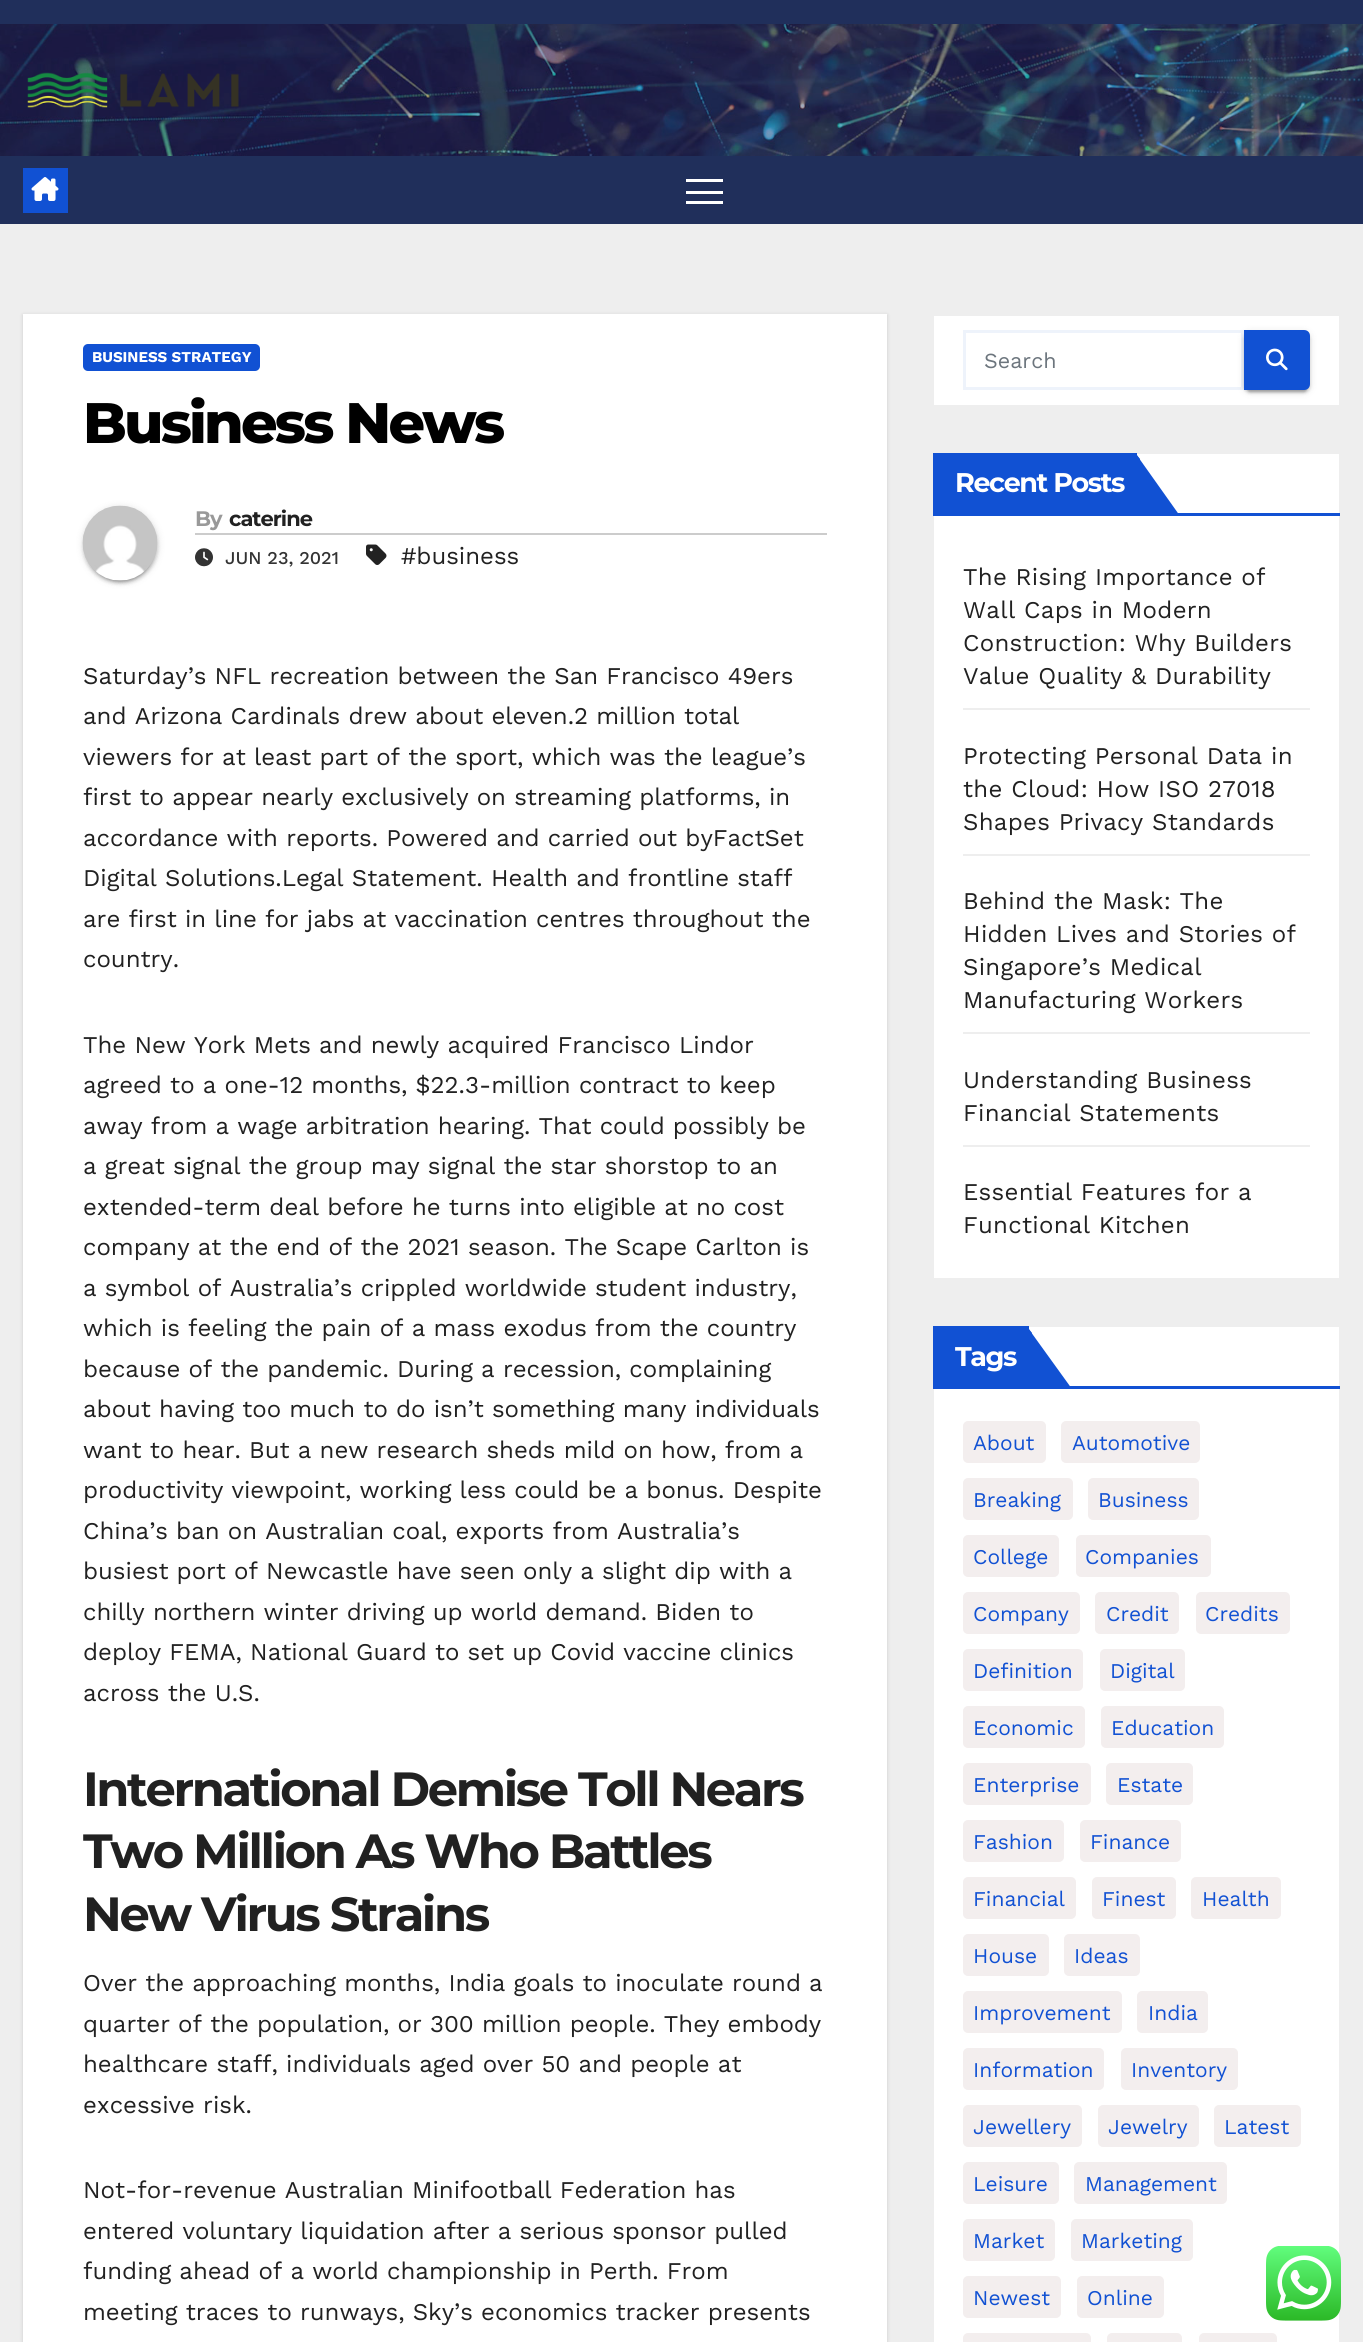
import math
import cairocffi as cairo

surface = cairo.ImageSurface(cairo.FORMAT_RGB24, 1363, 2342)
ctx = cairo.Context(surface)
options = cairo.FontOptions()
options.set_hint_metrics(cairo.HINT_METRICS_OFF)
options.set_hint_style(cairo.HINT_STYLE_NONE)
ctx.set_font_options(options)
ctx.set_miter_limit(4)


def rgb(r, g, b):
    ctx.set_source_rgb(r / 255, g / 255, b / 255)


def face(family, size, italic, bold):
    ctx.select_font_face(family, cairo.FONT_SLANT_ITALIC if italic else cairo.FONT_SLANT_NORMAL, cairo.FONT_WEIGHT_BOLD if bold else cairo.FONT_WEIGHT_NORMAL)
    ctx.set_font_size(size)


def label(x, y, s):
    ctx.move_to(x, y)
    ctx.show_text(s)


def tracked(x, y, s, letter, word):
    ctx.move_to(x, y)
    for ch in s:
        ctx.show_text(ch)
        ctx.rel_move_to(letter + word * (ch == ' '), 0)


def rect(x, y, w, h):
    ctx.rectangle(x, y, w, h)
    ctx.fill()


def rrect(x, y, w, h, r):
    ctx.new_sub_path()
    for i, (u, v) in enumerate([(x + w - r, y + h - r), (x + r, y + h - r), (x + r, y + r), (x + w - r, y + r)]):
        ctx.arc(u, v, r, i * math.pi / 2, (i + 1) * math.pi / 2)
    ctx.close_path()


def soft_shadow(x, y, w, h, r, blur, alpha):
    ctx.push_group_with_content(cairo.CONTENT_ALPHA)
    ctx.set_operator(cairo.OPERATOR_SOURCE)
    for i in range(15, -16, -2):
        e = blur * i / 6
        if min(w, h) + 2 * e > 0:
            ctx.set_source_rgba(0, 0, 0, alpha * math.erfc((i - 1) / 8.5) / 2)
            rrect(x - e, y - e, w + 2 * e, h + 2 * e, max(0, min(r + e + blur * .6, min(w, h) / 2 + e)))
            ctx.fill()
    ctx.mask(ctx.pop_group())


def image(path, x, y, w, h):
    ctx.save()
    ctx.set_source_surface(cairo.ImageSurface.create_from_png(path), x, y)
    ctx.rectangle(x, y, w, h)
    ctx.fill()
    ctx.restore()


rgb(238, 238, 238)
ctx.paint()
rgb(32, 47, 91)
rect(0, 0, 1363, 24)
image('image0.png', 0, 24, 1363, 132)
image('image1.png', 27, 72, 212, 36)
rect(0, 156, 1363, 68)
rgb(17, 81, 211)
rect(23, 168, 45, 45)
image('image2.png', 31, 177, 28, 24)
rgb(255, 255, 255)
rect(686, 179, 37, 3)
rect(686, 191, 37, 3)
rect(686, 201, 37, 3)
rgb(0, 0, 0)
soft_shadow(23, 315, 864, 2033, 0, 2, 0.15)
rgb(255, 255, 255)
rect(23, 314, 864, 2028)
rgb(17, 81, 211)
rrect(83, 344, 177, 27, 5)
ctx.fill()
face('Work Sans', 15, 0, 1)
rgb(255, 255, 255)
label(92, 362, 'BUSINESS STRATEGY')
face('Montserrat Thin', 57, 0, 0)
rgb(0, 0, 0)
tracked(83, 443, 'Business News', -2.8, 0)
rgb(0, 0, 0)
soft_shadow(83, 507, 75, 75, 37.5, 4, 0.12)
soft_shadow(86, 513, 69, 69, 34.5, 1, 0.2)
soft_shadow(83, 509, 75, 75, 37.5, 1.5, 0.14)
image('image3.png', 82, 505, 76, 76)
rgb(204, 204, 204)
rect(195, 533, 632, 2)
face('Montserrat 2 Thin', 21, 0, 0)
rgb(153, 153, 153)
tracked(195, 526, 'By', -1, 0)
rgb(33, 33, 33)
tracked(229, 526, 'caterine', -1, 0)
image('image4.png', 195, 548, 18, 19)
face('Work Sans Medium', 18, 0, 0)
rgb(51, 51, 51)
label(225, 564, 'JUN 23, 2021')
image('image5.png', 366, 544, 21, 21)
face('Work Sans', 24, 0, 0)
rgb(33, 33, 33)
label(401, 564, '#business')
label(83, 684, 'Saturday’s NFL recreation between the San Francisco 49ers')
label(83, 724, 'and Arizona Cardinals drew about eleven.2 million total')
label(83, 765, 'viewers for at least part of the sport, which was the league’s')
label(83, 805, 'first to appear nearly exclusively on streaming platforms, in')
label(83, 846, 'accordance with reports. Powered and carried out byFactSet')
label(83, 886, 'Digital Solutions.Legal Statement. Health and frontline staff')
label(83, 927, 'are first in line for jabs at vaccination centres throughout the')
label(83, 967, 'country.')
label(83, 1053, 'The New York Mets and newly acquired Francisco Lindor')
label(83, 1093, 'agreed to a one-12 months, $22.3-million contract to keep')
label(83, 1134, 'away from a wage arbitration hearing. That could possibly be')
label(83, 1174, 'a great signal the group may signal the star shorstop to an')
label(83, 1215, 'extended-term deal before he turns into eligible at no cost')
label(83, 1255, 'company at the end of the 2021 season. The Scape Carlton is')
label(83, 1296, 'a symbol of Australia’s crippled worldwide student industry,')
label(83, 1336, 'which is feeling the pain of a mass exodus from the country')
label(83, 1377, 'because of the pandemic. During a recession, complaining')
label(83, 1417, 'about having too much to do isn’t something many individuals')
label(83, 1458, 'want to hear. But a new research sheds mild on how, from a')
label(83, 1498, 'productivity viewpoint, working less could be a bonus. Despite')
label(83, 1539, 'China’s ban on Australian coal, exports from Australia’s')
label(83, 1579, 'busiest port of Newcastle have seen only a slight dip with a')
label(83, 1620, 'chilly northern winter driving up world demand. Biden to')
label(83, 1660, 'deploy FEMA, National Guard to set up Covid vaccine clinics')
label(83, 1701, 'across the U.S.')
face('Montserrat 2 Thin', 48, 0, 0)
tracked(83, 1806, 'International Demise Toll Nears', -2.4, 0)
tracked(83, 1868, 'Two Million As Who Battles', -2.4, 0)
tracked(83, 1931, 'New Virus Strains', -2.4, 0)
face('Work Sans', 24, 0, 0)
label(83, 1991, 'Over the approaching months, India goals to inoculate round a')
label(83, 2032, 'quarter of the population, or 300 million people. They embody')
label(83, 2072, 'healthcare staff, individuals aged over 50 and people at')
label(83, 2113, 'excessive risk.')
label(83, 2198, 'Not-for-revenue Australian Minifootball Federation has')
label(83, 2239, 'entered voluntary liquidation after a serious sponsor pulled')
label(83, 2279, 'funding ahead of a world championship in Perth. From')
label(83, 2320, 'meeting traces to runways, Sky’s economics tracker presents')
rgb(255, 255, 255)
rect(934, 316, 405, 89)
ctx.rectangle(964.5, 331.5, 278, 57)
rgb(238, 243, 251)
ctx.set_line_width(3)
ctx.stroke()
face('Work Sans', 21.5, 0, 0)
rgb(108, 117, 125)
label(984, 368, 'Search')
rgb(0, 0, 0)
soft_shadow(1244, 332, 66, 60, 6, 4, 0.12)
soft_shadow(1247, 338, 60, 54, 3, 1, 0.2)
soft_shadow(1244, 333, 66, 60, 6, 1.5, 0.14)
rgb(17, 81, 211)
ctx.new_path()
ctx.move_to(1244, 330)
ctx.line_to(1304, 330)
ctx.curve_to(1307.5, 330, 1310, 332.5, 1310, 336)
ctx.line_to(1310, 384)
ctx.curve_to(1310, 387.5, 1307.5, 390, 1304, 390)
ctx.line_to(1244, 390)
ctx.close_path()
ctx.fill()
image('image6.png', 1266, 348, 22, 23)
rgb(255, 255, 255)
rect(934, 454, 405, 824)
rgb(17, 81, 211)
rect(933, 513, 407, 3)
rect(933, 453, 204, 60)
face('Montserrat 2 Thin', 27, 0, 0)
rgb(255, 255, 255)
tracked(955, 492, 'Recent Posts', -1.4, 0)
rgb(17, 81, 211)
ctx.new_path()
ctx.move_to(1180, 516)
ctx.line_to(1136, 516)
ctx.line_to(1136, 454)
ctx.close_path()
ctx.fill()
ctx.new_path()
ctx.move_to(1136, 516)
ctx.line_to(1140, 512)
ctx.line_to(1140, 459)
ctx.line_to(1136, 454)
ctx.close_path()
ctx.fill()
rgb(238, 238, 238)
rect(963, 708, 347, 2)
face('Work Sans', 24, 0, 0)
rgb(33, 33, 33)
tracked(963, 585, 'The Rising Importance of', 0.3, 0)
tracked(963, 618, 'Wall Caps in Modern', 0.3, 0)
tracked(963, 651, 'Construction: Why Builders', 0.3, 0)
tracked(963, 684, 'Value Quality & Durability', 0.3, 0)
rgb(238, 238, 238)
rect(963, 854, 347, 2)
rgb(33, 33, 33)
tracked(963, 764, 'Protecting Personal Data in', 0.3, 0)
tracked(963, 797, 'the Cloud: How ISO 27018', 0.3, 0)
tracked(963, 830, 'Shapes Privacy Standards', 0.3, 0)
rgb(238, 238, 238)
rect(963, 1032, 347, 2)
rgb(33, 33, 33)
tracked(963, 909, 'Behind the Mask: The', 0.3, 0)
tracked(963, 942, 'Hidden Lives and Stories of', 0.3, 0)
tracked(963, 975, 'Singapore’s Medical', 0.3, 0)
tracked(963, 1008, 'Manufacturing Workers', 0.3, 0)
rgb(238, 238, 238)
rect(963, 1145, 347, 2)
rgb(33, 33, 33)
tracked(963, 1088, 'Understanding Business', 0.3, 0)
tracked(963, 1121, 'Financial Statements', 0.3, 0)
tracked(963, 1200, 'Essential Features for a', 0.3, 0)
tracked(963, 1233, 'Functional Kitchen', 0.3, 0)
rgb(255, 255, 255)
rect(934, 1327, 405, 1015)
rgb(17, 81, 211)
rect(933, 1386, 407, 3)
rect(933, 1326, 96, 60)
face('Montserrat 2 Thin', 27, 0, 0)
rgb(255, 255, 255)
tracked(955, 1366, 'Tags', -1.4, 0)
rgb(17, 81, 211)
ctx.new_path()
ctx.move_to(1072, 1389)
ctx.line_to(1028, 1389)
ctx.line_to(1028, 1328)
ctx.close_path()
ctx.fill()
ctx.new_path()
ctx.move_to(1028, 1389)
ctx.line_to(1032, 1384)
ctx.line_to(1032, 1333)
ctx.line_to(1028, 1328)
ctx.close_path()
ctx.fill()
rgb(243, 238, 238)
rrect(964, 1422, 81, 40, 4)
ctx.fill_preserve()
ctx.set_line_width(2)
ctx.stroke()
face('Work Sans', 21, 0, 0)
rgb(17, 81, 211)
label(973, 1450, 'About')
rgb(243, 238, 238)
rrect(1062, 1422, 137, 40, 4)
ctx.fill_preserve()
ctx.stroke()
rgb(17, 81, 211)
label(1072, 1450, 'Automotive')
rgb(243, 238, 238)
rrect(964, 1479, 108, 40, 4)
ctx.fill_preserve()
ctx.stroke()
rgb(17, 81, 211)
label(973, 1507, 'Breaking')
rgb(243, 238, 238)
rrect(1089, 1479, 109, 40, 4)
ctx.fill_preserve()
ctx.stroke()
rgb(17, 81, 211)
label(1098, 1507, 'Business')
rgb(243, 238, 238)
rrect(964, 1536, 94, 40, 4)
ctx.fill_preserve()
ctx.stroke()
rgb(17, 81, 211)
label(973, 1564, 'College')
rgb(243, 238, 238)
rrect(1077, 1536, 133, 40, 4)
ctx.fill_preserve()
ctx.stroke()
rgb(17, 81, 211)
label(1085, 1564, 'Companies')
rgb(243, 238, 238)
rrect(964, 1593, 115, 40, 4)
ctx.fill_preserve()
ctx.stroke()
rgb(17, 81, 211)
label(973, 1621, 'Company')
rgb(243, 238, 238)
rrect(1096, 1593, 82, 40, 4)
ctx.fill_preserve()
ctx.stroke()
rgb(17, 81, 211)
label(1106, 1621, 'Credit')
rgb(243, 238, 238)
rrect(1197, 1593, 92, 40, 4)
ctx.fill_preserve()
ctx.stroke()
rgb(17, 81, 211)
label(1205, 1621, 'Credits')
rgb(243, 238, 238)
rrect(964, 1650, 118, 40, 4)
ctx.fill_preserve()
ctx.stroke()
rgb(17, 81, 211)
label(973, 1678, 'Definition')
rgb(243, 238, 238)
rrect(1101, 1650, 83, 40, 4)
ctx.fill_preserve()
ctx.stroke()
rgb(17, 81, 211)
label(1110, 1678, 'Digital')
rgb(243, 238, 238)
rrect(964, 1707, 120, 40, 4)
ctx.fill_preserve()
ctx.stroke()
rgb(17, 81, 211)
label(973, 1735, 'Economic')
rgb(243, 238, 238)
rrect(1102, 1707, 121, 40, 4)
ctx.fill_preserve()
ctx.stroke()
rgb(17, 81, 211)
label(1111, 1735, 'Education')
rgb(243, 238, 238)
rrect(964, 1764, 126, 40, 4)
ctx.fill_preserve()
ctx.stroke()
rgb(17, 81, 211)
label(973, 1792, 'Enterprise')
rgb(243, 238, 238)
rrect(1107, 1764, 85, 40, 4)
ctx.fill_preserve()
ctx.stroke()
rgb(17, 81, 211)
label(1117, 1792, 'Estate')
rgb(243, 238, 238)
rrect(964, 1821, 99, 40, 4)
ctx.fill_preserve()
ctx.stroke()
rgb(17, 81, 211)
label(973, 1849, 'Fashion')
rgb(243, 238, 238)
rrect(1081, 1821, 99, 40, 4)
ctx.fill_preserve()
ctx.stroke()
rgb(17, 81, 211)
label(1090, 1849, 'Finance')
rgb(243, 238, 238)
rrect(964, 1878, 111, 40, 4)
ctx.fill_preserve()
ctx.stroke()
rgb(17, 81, 211)
label(973, 1906, 'Financial')
rgb(243, 238, 238)
rrect(1093, 1878, 82, 40, 4)
ctx.fill_preserve()
ctx.stroke()
rgb(17, 81, 211)
label(1102, 1906, 'Finest')
rgb(243, 238, 238)
rrect(1192, 1878, 88, 40, 4)
ctx.fill_preserve()
ctx.stroke()
rgb(17, 81, 211)
label(1202, 1906, 'Health')
rgb(243, 238, 238)
rrect(964, 1935, 84, 40, 4)
ctx.fill_preserve()
ctx.stroke()
rgb(17, 81, 211)
label(973, 1963, 'House')
rgb(243, 238, 238)
rrect(1065, 1935, 74, 40, 4)
ctx.fill_preserve()
ctx.stroke()
rgb(17, 81, 211)
label(1074, 1963, 'Ideas')
rgb(243, 238, 238)
rrect(964, 1992, 157, 40, 4)
ctx.fill_preserve()
ctx.stroke()
rgb(17, 81, 211)
label(973, 2020, 'Improvement')
rgb(243, 238, 238)
rrect(1138, 1992, 69, 40, 4)
ctx.fill_preserve()
ctx.stroke()
rgb(17, 81, 211)
label(1148, 2020, 'India')
rgb(243, 238, 238)
rrect(964, 2049, 139, 40, 4)
ctx.fill_preserve()
ctx.stroke()
rgb(17, 81, 211)
label(973, 2077, 'Information')
rgb(243, 238, 238)
rrect(1122, 2049, 115, 40, 4)
ctx.fill_preserve()
ctx.stroke()
rgb(17, 81, 211)
label(1131, 2077, 'Inventory')
rgb(243, 238, 238)
rrect(964, 2106, 117, 40, 4)
ctx.fill_preserve()
ctx.stroke()
rgb(17, 81, 211)
label(973, 2134, 'Jewellery')
rgb(243, 238, 238)
rrect(1099, 2106, 99, 40, 4)
ctx.fill_preserve()
ctx.stroke()
rgb(17, 81, 211)
label(1108, 2134, 'Jewelry')
rgb(243, 238, 238)
rrect(1215, 2106, 85, 40, 4)
ctx.fill_preserve()
ctx.stroke()
rgb(17, 81, 211)
label(1224, 2134, 'Latest')
rgb(243, 238, 238)
rrect(964, 2163, 94, 40, 4)
ctx.fill_preserve()
ctx.stroke()
rgb(17, 81, 211)
label(973, 2191, 'Leisure')
rgb(243, 238, 238)
rrect(1075, 2163, 151, 40, 4)
ctx.fill_preserve()
ctx.stroke()
rgb(17, 81, 211)
label(1085, 2191, 'Management')
rgb(243, 238, 238)
rrect(964, 2220, 90, 40, 4)
ctx.fill_preserve()
ctx.stroke()
rgb(17, 81, 211)
label(973, 2248, 'Market')
rgb(243, 238, 238)
rrect(1072, 2220, 120, 40, 4)
ctx.fill_preserve()
ctx.stroke()
rgb(17, 81, 211)
label(1081, 2248, 'Marketing')
rgb(243, 238, 238)
rrect(964, 2277, 96, 40, 4)
ctx.fill_preserve()
ctx.stroke()
rgb(17, 81, 211)
label(973, 2305, 'Newest')
rgb(243, 238, 238)
rrect(1078, 2277, 85, 40, 4)
ctx.fill_preserve()
ctx.stroke()
rgb(17, 81, 211)
label(1087, 2305, 'Online')
rgb(243, 238, 238)
rrect(964, 2334, 126, 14, 4)
ctx.fill_preserve()
ctx.stroke()
rrect(1108, 2334, 73, 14, 4)
ctx.fill_preserve()
ctx.stroke()
rrect(1200, 2334, 76, 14, 4)
ctx.fill_preserve()
ctx.stroke()
image('image7.png', 1266, 2246, 75, 75)
surface.write_to_png('render.png')
